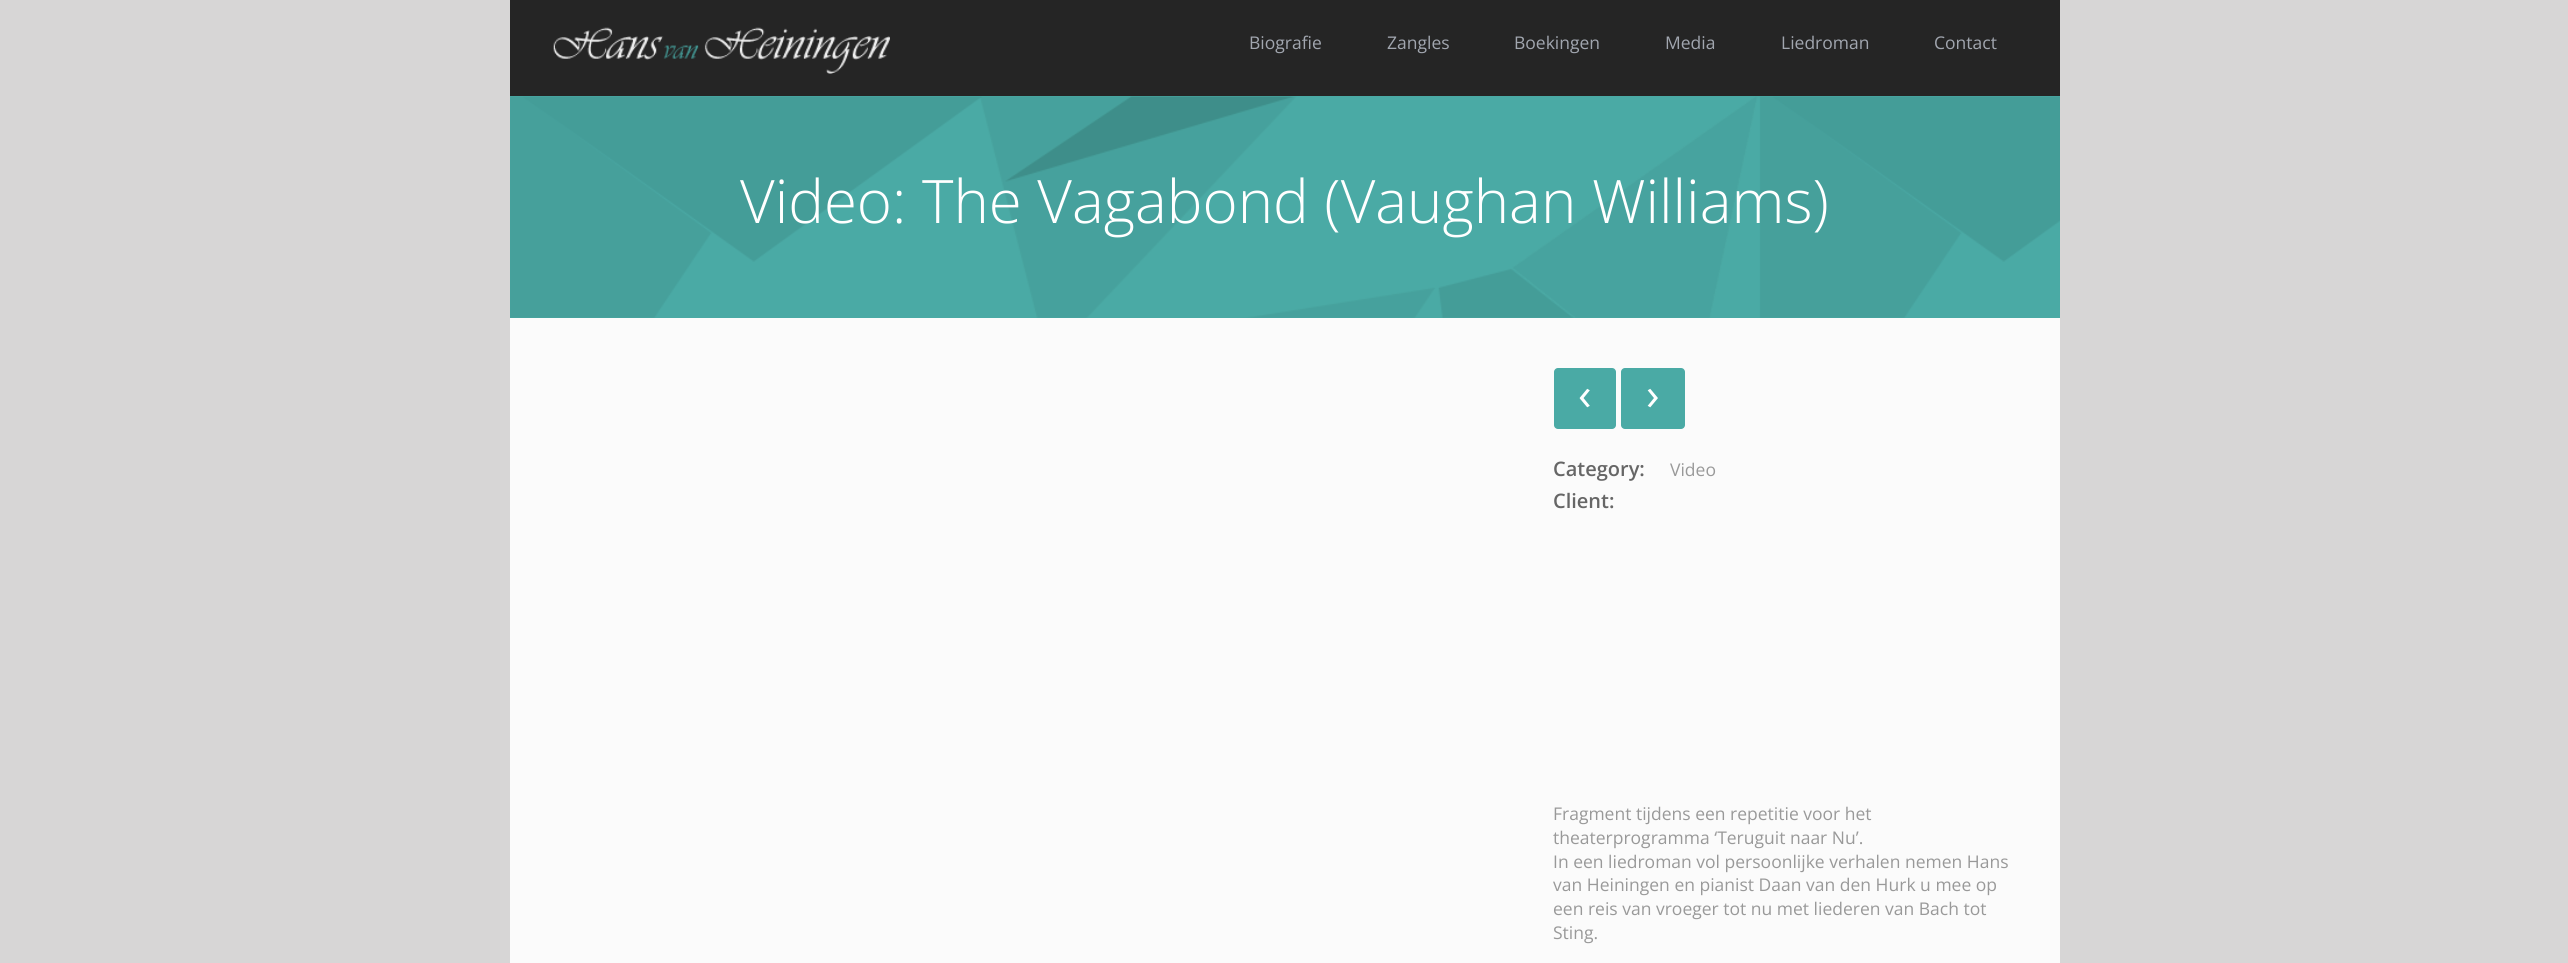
import math
import cairocffi as cairo

surface = cairo.ImageSurface(cairo.FORMAT_RGB24, 2568, 963)
ctx = cairo.Context(surface)
options = cairo.FontOptions()
options.set_hint_metrics(cairo.HINT_METRICS_OFF)
options.set_hint_style(cairo.HINT_STYLE_NONE)
ctx.set_font_options(options)
ctx.set_miter_limit(4)


def rgb(r, g, b):
    ctx.set_source_rgb(r / 255, g / 255, b / 255)


def face(family, size, italic, bold):
    ctx.select_font_face(family, cairo.FONT_SLANT_ITALIC if italic else cairo.FONT_SLANT_NORMAL, cairo.FONT_WEIGHT_BOLD if bold else cairo.FONT_WEIGHT_NORMAL)
    ctx.set_font_size(size)


def label(x, y, s):
    ctx.move_to(x, y)
    ctx.show_text(s)


def rect(x, y, w, h):
    ctx.rectangle(x, y, w, h)
    ctx.fill()


def rrect(x, y, w, h, r):
    ctx.new_sub_path()
    for i, (u, v) in enumerate([(x + w - r, y + h - r), (x + r, y + h - r), (x + r, y + r), (x + w - r, y + r)]):
        ctx.arc(u, v, r, i * math.pi / 2, (i + 1) * math.pi / 2)
    ctx.close_path()


def image(path, x, y, w, h):
    ctx.save()
    ctx.set_source_surface(cairo.ImageSurface.create_from_png(path), x, y)
    ctx.rectangle(x, y, w, h)
    ctx.fill()
    ctx.restore()


rgb(215, 214, 214)
ctx.paint()
rgb(37, 37, 37)
rect(510, 0, 1550, 96)
image('image0.png', 553, 27, 337, 47)
face('Open Sans', 17.5, 0, 0)
rgb(161, 166, 175)
label(1249, 49, 'Biografie')
label(1387, 49, 'Zangles')
label(1514, 49, 'Boekingen')
label(1665, 49, 'Media')
label(1781, 49, 'Liedroman')
label(1934, 49, 'Contact')
rgb(74, 170, 165)
rect(510, 96, 1550, 222)
image('image1.png', 510, 96, 1550, 222)
face('Open Sans Light', 60, 0, 0)
rgb(255, 255, 255)
label(740, 223, 'Video: The Vagabond (Vaughan Williams)')
rgb(251, 251, 251)
rect(510, 318, 1550, 645)
rgb(74, 170, 165)
rrect(1554, 368, 62, 61, 4)
ctx.fill()
face('Open Sans', 45, 0, 0)
rgb(255, 255, 255)
label(1578, 410, '‹')
rgb(74, 170, 165)
rrect(1621, 368, 64, 61, 4)
ctx.fill()
rgb(255, 255, 255)
label(1646, 410, '›')
face('Open Sans SemiBold', 20, 0, 0)
rgb(102, 102, 102)
label(1553, 476, 'Category:')
face('Open Sans', 17.5, 0, 0)
rgb(153, 153, 153)
label(1670, 476, 'Video')
face('Open Sans SemiBold', 20, 0, 0)
rgb(102, 102, 102)
label(1553, 508, 'Client:')
face('Open Sans', 17.5, 0, 0)
rgb(153, 153, 153)
label(1553, 820, 'Fragment tijdens een repetitie voor het')
label(1553, 844, 'theaterprogramma ‘Teruguit naar Nu’.')
label(1553, 868, 'In een liedroman vol persoonlijke verhalen nemen Hans')
label(1553, 891, 'van Heiningen en pianist Daan van den Hurk u mee op')
label(1553, 915, 'een reis van vroeger tot nu met liederen van Bach tot')
label(1553, 939, 'Sting.')
surface.write_to_png('render.png')
